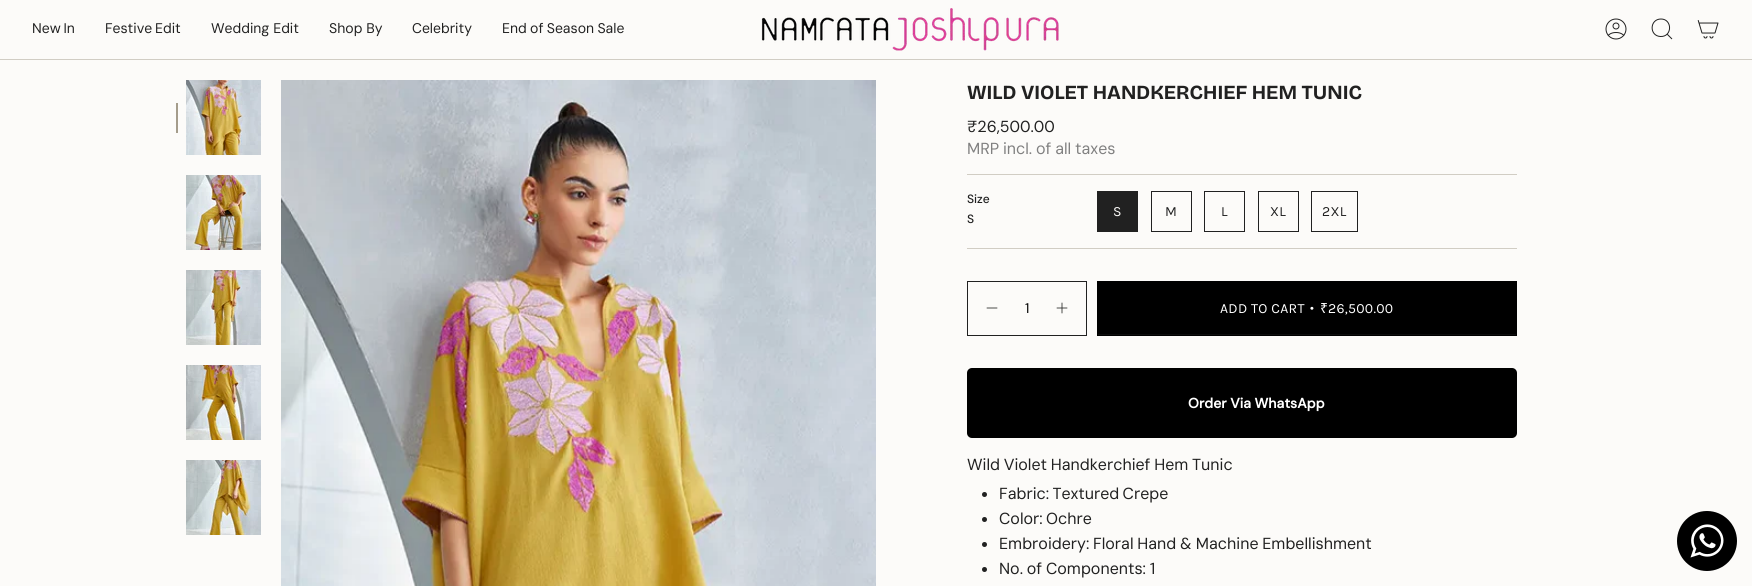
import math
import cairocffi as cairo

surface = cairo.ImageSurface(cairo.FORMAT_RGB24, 1752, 586)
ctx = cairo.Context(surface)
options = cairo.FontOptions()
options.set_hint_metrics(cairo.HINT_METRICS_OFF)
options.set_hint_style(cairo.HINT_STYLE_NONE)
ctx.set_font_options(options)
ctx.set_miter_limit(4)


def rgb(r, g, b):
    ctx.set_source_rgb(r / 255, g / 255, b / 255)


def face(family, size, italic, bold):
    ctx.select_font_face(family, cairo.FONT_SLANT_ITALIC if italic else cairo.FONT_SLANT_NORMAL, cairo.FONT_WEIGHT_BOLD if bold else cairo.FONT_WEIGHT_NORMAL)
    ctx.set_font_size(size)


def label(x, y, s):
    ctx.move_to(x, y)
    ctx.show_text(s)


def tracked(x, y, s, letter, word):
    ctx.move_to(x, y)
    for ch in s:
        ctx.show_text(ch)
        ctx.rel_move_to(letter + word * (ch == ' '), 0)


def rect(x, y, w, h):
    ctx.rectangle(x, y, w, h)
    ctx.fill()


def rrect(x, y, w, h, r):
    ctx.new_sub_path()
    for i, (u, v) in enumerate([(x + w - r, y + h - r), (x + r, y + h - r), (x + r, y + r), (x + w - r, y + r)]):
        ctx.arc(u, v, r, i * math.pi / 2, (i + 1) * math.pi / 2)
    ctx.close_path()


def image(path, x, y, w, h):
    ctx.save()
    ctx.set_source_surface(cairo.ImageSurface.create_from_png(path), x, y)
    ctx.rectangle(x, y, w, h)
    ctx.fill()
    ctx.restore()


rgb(252, 251, 249)
ctx.paint()
face('DM Sans', 14, 0, 0)
rgb(33, 33, 33)
tracked(32, 33, 'New In', 0, -1)
tracked(105, 33, 'Festive Edit', 0, -1)
label(211, 33, 'Wedding Edit')
label(329, 33, 'Shop By')
label(412, 33, 'Celebrity')
tracked(502, 33, 'End of Season Sale', 0, -0.5)
image('image0.png', 761, 8, 298, 43)
image('image1.png', 1605, 18, 22, 22)
ctx.new_path()
ctx.move_to(1661, 19)
ctx.curve_to(1672.5, 19, 1672.5, 37, 1660.5, 36.5)
ctx.curve_to(1649, 36, 1649.5, 19, 1661, 19)
ctx.close_path()
ctx.move_to(1667, 34)
ctx.line_to(1672, 39)
ctx.set_line_width(1)
ctx.stroke()
image('image2.png', 1697, 20, 22, 19)
rgb(209, 205, 196)
rect(0, 59, 1752, 1)
rgb(164, 156, 139)
rect(176, 103, 2, 30)
image('image3.png', 186, 80, 75, 75)
image('image4.png', 186, 175, 75, 75)
image('image5.png', 186, 270, 75, 75)
image('image6.png', 186, 365, 75, 75)
image('image7.png', 186, 460, 75, 75)
image('image8.png', 281, 80, 595, 506)
face('Bricolage Grotesque', 20, 0, 1)
rgb(33, 33, 33)
label(967, 99, 'WILD VIOLET HANDKERCHIEF HEM TUNIC')
face('DM Sans', 16, 0, 0)
label(967, 132, '₹26,500.00')
rgb(128, 128, 128)
tracked(967, 154, 'MRP incl. of all taxes', 0, -0.5)
rgb(209, 205, 196)
rect(967, 174, 550, 1)
rect(967, 248, 550, 1)
face('DM Sans Medium', 12, 0, 0)
rgb(33, 33, 33)
label(967, 203, 'Size')
label(967, 223, 'S')
rect(1097, 191, 41, 41)
face('Karla', 14, 0, 0)
rgb(252, 251, 249)
tracked(1113, 216, 'S', 0.3, 0)
ctx.rectangle(1151.5, 191.5, 40, 40)
rgb(33, 33, 33)
ctx.stroke()
tracked(1165, 216, 'M', 0.3, 0)
ctx.rectangle(1204.5, 191.5, 40, 40)
ctx.stroke()
tracked(1221, 216, 'L', 0.3, 0)
ctx.rectangle(1258.5, 191.5, 40, 40)
ctx.stroke()
tracked(1270, 216, 'XL', 0.3, 0)
ctx.rectangle(1311.5, 191.5, 46, 40)
ctx.stroke()
tracked(1322, 216, '2XL', 0.3, 0)
ctx.rectangle(967.5, 281.5, 119, 54)
ctx.stroke()
ctx.new_path()
ctx.move_to(987, 308)
ctx.line_to(997, 308)
ctx.set_line_width(0.8)
ctx.set_line_cap(cairo.LINE_CAP_ROUND)
ctx.set_line_join(cairo.LINE_JOIN_ROUND)
ctx.stroke()
face('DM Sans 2', 14, 0, 0)
rgb(0, 0, 0)
label(1025, 313, '1')
image('image9.png', 1056, 302, 12, 12)
rect(1097, 281, 420, 55)
face('Karla', 14, 0, 0)
rgb(255, 255, 255)
tracked(1220, 313, 'ADD TO CART', 0.3, 0)
tracked(1310, 312, '•', 0.3, 0)
face('Noto Sans', 14, 0, 0)
tracked(1320, 313, '₹', 0.3, 0)
face('Karla', 14, 0, 0)
tracked(1328, 313, '26,500.00', 0.3, 0)
rgb(13, 13, 13)
rect(1098, 334, 418, 1)
rgb(0, 0, 0)
rrect(967, 368, 550, 70, 5)
ctx.fill()
face('DM Sans', 14, 0, 1)
rgb(255, 255, 255)
label(1188, 408, 'Order Via WhatsApp')
face('DM Sans', 16, 0, 0)
rgb(33, 33, 33)
tracked(967, 470, 'Wild Violet Handkerchief Hem Tunic', 0, -0.5)
ctx.new_path()
ctx.arc(984.5, 494.5, 2.5, 0, 2 * math.pi)
ctx.fill()
tracked(999, 499, 'Fabric: Textured Crepe', 0, -1)
ctx.new_path()
ctx.arc(984.5, 519.5, 2.5, 0, 2 * math.pi)
ctx.fill()
tracked(999, 524, 'Color: Ochre', 0, -1)
ctx.new_path()
ctx.arc(984.5, 544.5, 2.5, 0, 2 * math.pi)
ctx.fill()
tracked(999, 549, 'Embroidery: Floral Hand & Machine Embellishment', 0, -0.5)
ctx.new_path()
ctx.arc(984.5, 569.5, 2.5, 0, 2 * math.pi)
ctx.fill()
tracked(999, 574, 'No. of Components: 1', 0, -0.5)
image('image10.png', 1677, 511, 60, 60)
surface.write_to_png('render.png')
